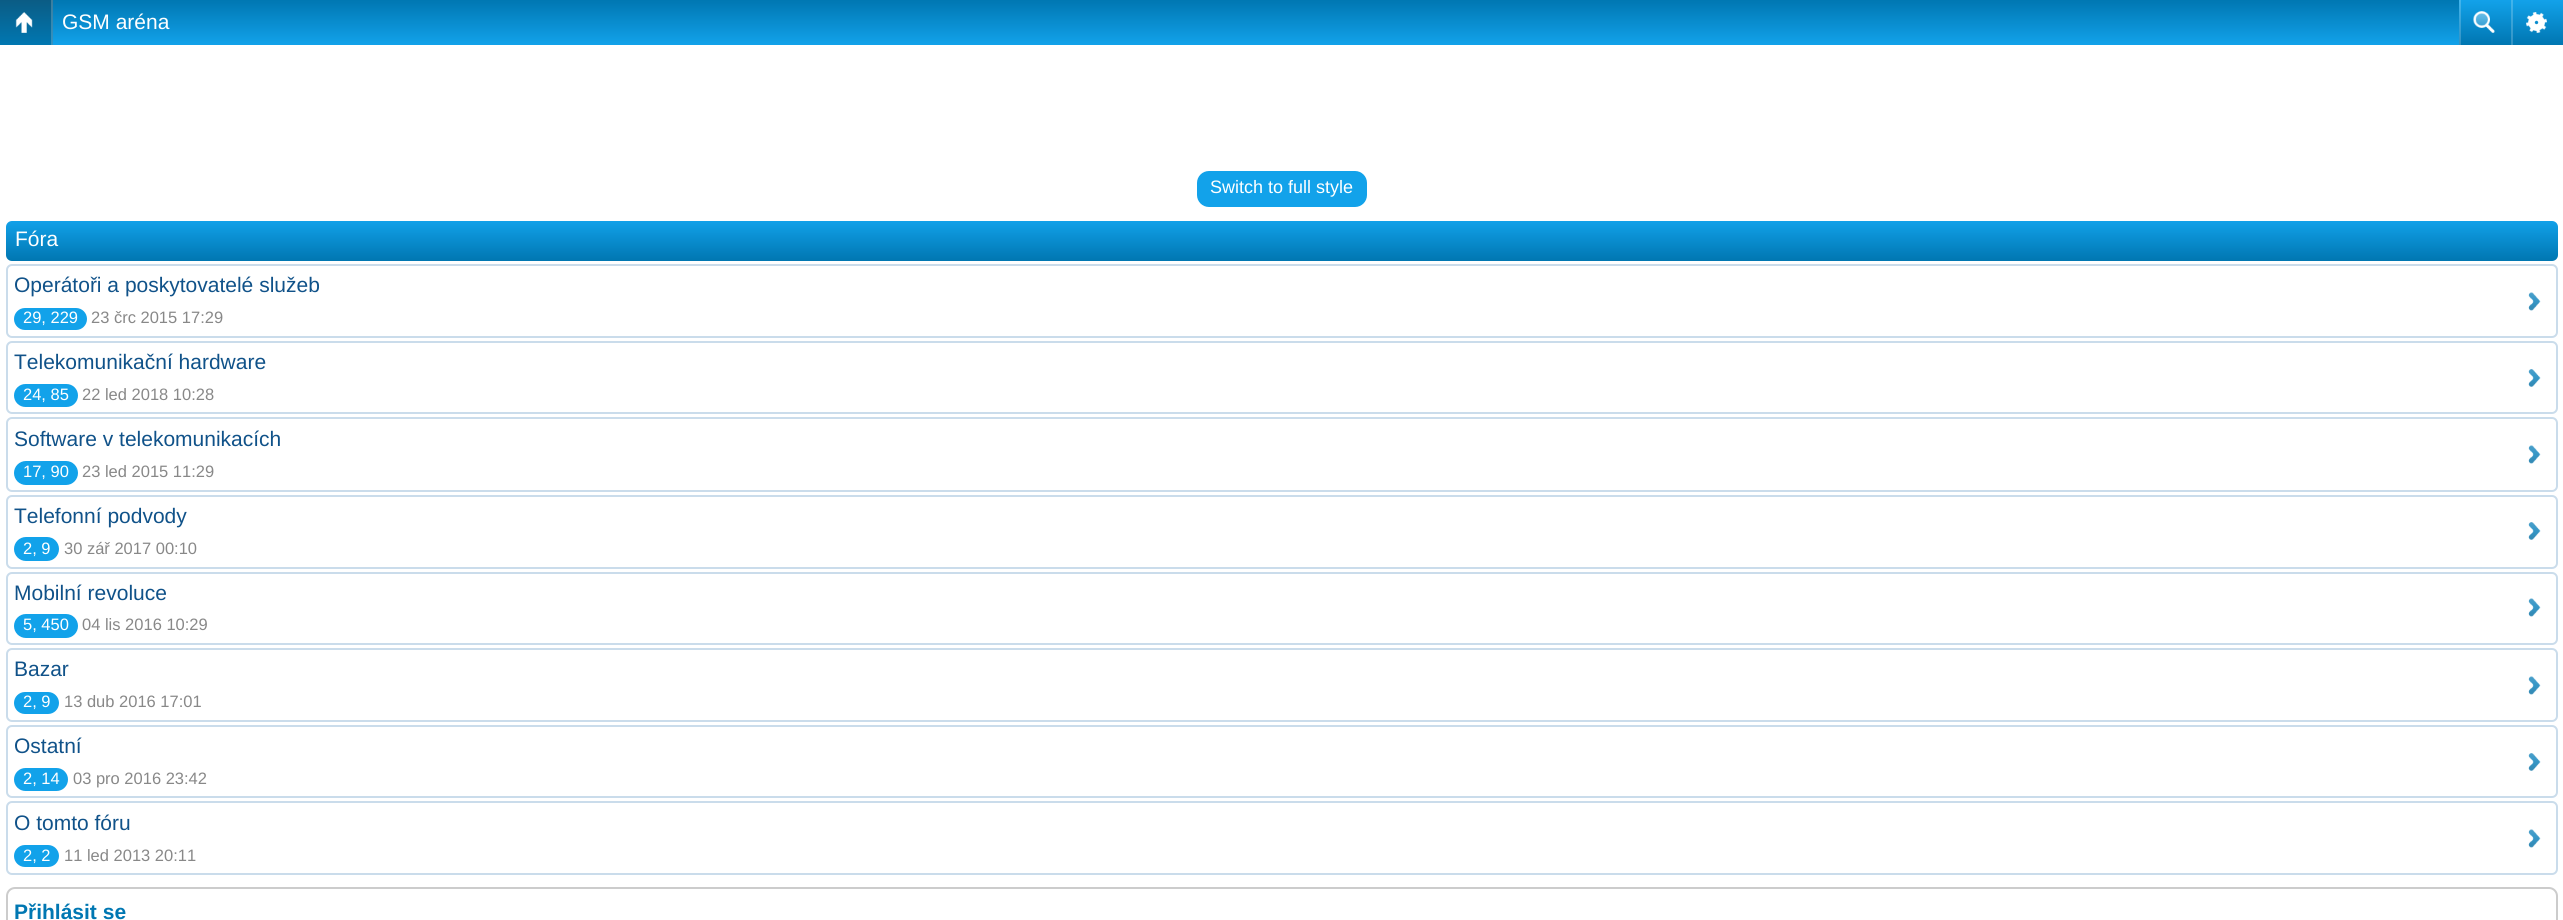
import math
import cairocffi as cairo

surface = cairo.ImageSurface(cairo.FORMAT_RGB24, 2563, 920)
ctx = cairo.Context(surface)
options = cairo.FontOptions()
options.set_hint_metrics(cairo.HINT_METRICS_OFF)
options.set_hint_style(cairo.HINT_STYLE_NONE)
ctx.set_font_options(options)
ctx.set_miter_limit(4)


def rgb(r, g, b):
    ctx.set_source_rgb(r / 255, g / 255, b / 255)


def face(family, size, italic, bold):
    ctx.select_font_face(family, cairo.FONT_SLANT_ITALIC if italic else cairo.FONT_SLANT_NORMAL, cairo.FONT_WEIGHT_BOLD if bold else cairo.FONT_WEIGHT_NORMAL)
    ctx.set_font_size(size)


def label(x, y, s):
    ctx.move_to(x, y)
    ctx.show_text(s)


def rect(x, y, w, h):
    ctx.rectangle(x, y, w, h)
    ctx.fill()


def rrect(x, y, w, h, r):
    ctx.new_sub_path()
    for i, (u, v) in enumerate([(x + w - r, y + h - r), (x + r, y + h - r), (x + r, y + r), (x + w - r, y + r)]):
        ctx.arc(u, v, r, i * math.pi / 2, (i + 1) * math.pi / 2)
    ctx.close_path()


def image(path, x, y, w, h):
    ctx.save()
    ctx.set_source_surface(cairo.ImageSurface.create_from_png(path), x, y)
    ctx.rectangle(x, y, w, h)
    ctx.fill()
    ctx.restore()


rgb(255, 255, 255)
ctx.paint()
gradient = cairo.LinearGradient(1282, 0, 1282, 45)
gradient.add_color_stop_rgba(0, 0, 0.467, 0.698, 1)
gradient.add_color_stop_rgba(1, 0.071, 0.635, 0.918, 1)
ctx.set_source(gradient)
rect(53, 0, 2406, 45)
gradient = cairo.LinearGradient(26, 0, 26, 45)
gradient.add_color_stop_rgba(0, 0.043, 0.361, 0.518, 1)
gradient.add_color_stop_rgba(1, 0, 0.467, 0.698, 1)
ctx.set_source(gradient)
rect(0, 0, 51, 45)
gradient = cairo.LinearGradient(26, 0, 26, 45)
gradient.add_color_stop_rgba(0, 0.235, 0.49, 0.616, 1)
gradient.add_color_stop_rgba(1, 0.2, 0.573, 0.757, 1)
ctx.set_source(gradient)
rect(51, 0, 2, 45)
image('image0.png', 15, 12, 18, 21)
face('Liberation Sans', 21, 0, 0)
rgb(255, 255, 255)
label(62, 29, 'GSM aréna')
gradient = cairo.LinearGradient(2485, 0, 2485, 45)
gradient.add_color_stop_rgba(0, 0.071, 0.635, 0.918, 1)
gradient.add_color_stop_rgba(1, 0, 0.463, 0.694, 1)
ctx.set_source(gradient)
rect(2461, 0, 50, 45)
gradient = cairo.LinearGradient(2485, 0, 2485, 45)
gradient.add_color_stop_rgba(0, 0.255, 0.71, 0.933, 1)
gradient.add_color_stop_rgba(1, 0.2, 0.569, 0.757, 1)
ctx.set_source(gradient)
rect(2459, 0, 2, 45)
image('image1.png', 2473, 11, 22, 22)
gradient = cairo.LinearGradient(2537, 0, 2537, 45)
gradient.add_color_stop_rgba(0, 0.071, 0.635, 0.918, 1)
gradient.add_color_stop_rgba(1, 0, 0.463, 0.694, 1)
ctx.set_source(gradient)
rect(2513, 0, 50, 45)
gradient = cairo.LinearGradient(2537, 0, 2537, 45)
gradient.add_color_stop_rgba(0, 0.255, 0.71, 0.933, 1)
gradient.add_color_stop_rgba(1, 0.2, 0.569, 0.757, 1)
ctx.set_source(gradient)
rect(2511, 0, 2, 45)
image('image2.png', 2526, 12, 21, 21)
rgb(18, 162, 234)
rrect(1197, 171, 170, 36, 12)
ctx.fill()
face('Liberation Sans', 18, 0, 0)
rgb(255, 255, 255)
label(1210, 193, 'Switch to full style')
gradient = cairo.LinearGradient(1282, 220, 1282, 261)
gradient.add_color_stop_rgba(0, 0.071, 0.635, 0.918, 1)
gradient.add_color_stop_rgba(1, 0, 0.463, 0.694, 1)
ctx.set_source(gradient)
rrect(6, 221, 2552, 40, 6)
ctx.fill()
face('Liberation Sans', 21, 0, 0)
rgb(255, 255, 255)
label(15, 246, 'Fóra')
rrect(7, 265, 2550, 72, 5)
rgb(202, 220, 235)
ctx.stroke()
rgb(16, 82, 137)
label(14, 292, 'Operátoři a poskytovatelé služeb')
image('image3.png', 2528, 292, 13, 19)
rgb(18, 162, 234)
rrect(14, 308, 73, 22, 11)
ctx.fill()
face('Liberation Sans', 16.5, 0, 0)
rgb(255, 255, 255)
label(23, 323, '29, 229')
rgb(136, 136, 136)
label(91, 323, '23 črc 2015 17:29')
rrect(7, 342, 2550, 71, 5)
rgb(202, 220, 235)
ctx.stroke()
face('Liberation Sans', 21, 0, 0)
rgb(16, 82, 137)
label(14, 369, 'Telekomunikační hardware')
image('image4.png', 2528, 369, 13, 18)
rgb(18, 162, 234)
rrect(14, 384, 64, 23, 11.5)
ctx.fill()
face('Liberation Sans', 16.5, 0, 0)
rgb(255, 255, 255)
label(23, 400, '24, 85')
rgb(136, 136, 136)
label(82, 400, '22 led 2018 10:28')
rrect(7, 418, 2550, 73, 5)
rgb(202, 220, 235)
ctx.stroke()
face('Liberation Sans', 21, 0, 0)
rgb(16, 82, 137)
label(14, 446, 'Software v telekomunikacích')
image('image3.png', 2528, 445, 13, 19)
rgb(18, 162, 234)
rrect(14, 461, 64, 24, 12)
ctx.fill()
face('Liberation Sans', 16.5, 0, 0)
rgb(255, 255, 255)
label(23, 477, '17, 90')
rgb(136, 136, 136)
label(82, 477, '23 led 2015 11:29')
rrect(7, 496, 2550, 72, 5)
rgb(202, 220, 235)
ctx.stroke()
face('Liberation Sans', 21, 0, 0)
rgb(16, 82, 137)
label(14, 523, 'Telefonní podvody')
image('image4.png', 2528, 522, 13, 18)
rgb(18, 162, 234)
rrect(14, 537, 45, 24, 12)
ctx.fill()
face('Liberation Sans', 16.5, 0, 0)
rgb(255, 255, 255)
label(23, 554, '2, 9')
rgb(136, 136, 136)
label(64, 554, '30 zář 2017 00:10')
rrect(7, 573, 2550, 71, 5)
rgb(202, 220, 235)
ctx.stroke()
face('Liberation Sans', 21, 0, 0)
rgb(16, 82, 137)
label(14, 600, 'Mobilní revoluce')
image('image3.png', 2528, 598, 13, 19)
rgb(18, 162, 234)
rrect(14, 614, 64, 24, 12)
ctx.fill()
face('Liberation Sans', 16.5, 0, 0)
rgb(255, 255, 255)
label(23, 630, '5, 450')
rgb(136, 136, 136)
label(82, 630, '04 lis 2016 10:29')
rrect(7, 649, 2550, 72, 5)
rgb(202, 220, 235)
ctx.stroke()
face('Liberation Sans', 21, 0, 0)
rgb(16, 82, 137)
label(14, 676, 'Bazar')
image('image3.png', 2528, 676, 13, 19)
rgb(18, 162, 234)
rrect(14, 692, 45, 22, 11)
ctx.fill()
face('Liberation Sans', 16.5, 0, 0)
rgb(255, 255, 255)
label(23, 707, '2, 9')
rgb(136, 136, 136)
label(64, 707, '13 dub 2016 17:01')
rrect(7, 726, 2550, 71, 5)
rgb(202, 220, 235)
ctx.stroke()
face('Liberation Sans', 21, 0, 0)
rgb(16, 82, 137)
label(14, 753, 'Ostatní')
image('image4.png', 2528, 753, 13, 18)
rgb(18, 162, 234)
rrect(14, 768, 54, 23, 11.5)
ctx.fill()
face('Liberation Sans', 16.5, 0, 0)
rgb(255, 255, 255)
label(23, 784, '2, 14')
rgb(136, 136, 136)
label(73, 784, '03 pro 2016 23:42')
rrect(7, 802, 2550, 72, 5)
rgb(202, 220, 235)
ctx.stroke()
face('Liberation Sans', 21, 0, 0)
rgb(16, 82, 137)
label(14, 830, 'O tomto fóru')
image('image3.png', 2528, 829, 13, 19)
rgb(18, 162, 234)
rrect(14, 845, 45, 22, 11)
ctx.fill()
face('Liberation Sans', 16.5, 0, 0)
rgb(255, 255, 255)
label(23, 861, '2, 2')
rgb(136, 136, 136)
label(64, 861, '11 led 2013 20:11')
rrect(7, 888, 2550, 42, 8)
rgb(204, 204, 204)
ctx.stroke()
face('Liberation Sans', 21, 0, 1)
rgb(0, 119, 178)
label(14, 919, 'Přihlásit se')
surface.write_to_png('render.png')
